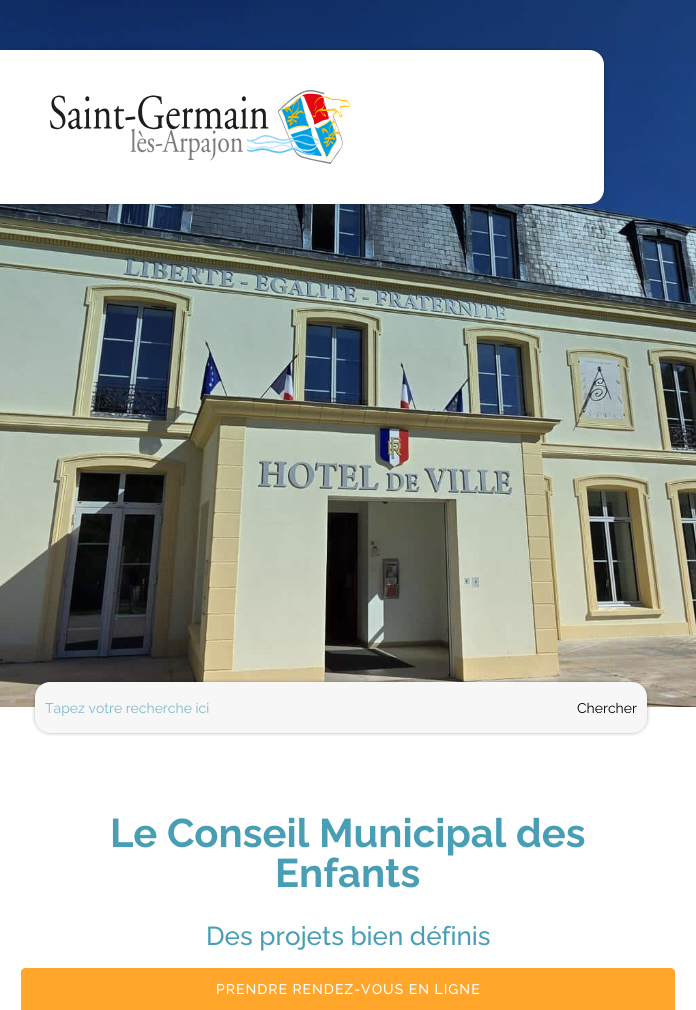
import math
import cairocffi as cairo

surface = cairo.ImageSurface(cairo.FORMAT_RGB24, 696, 1010)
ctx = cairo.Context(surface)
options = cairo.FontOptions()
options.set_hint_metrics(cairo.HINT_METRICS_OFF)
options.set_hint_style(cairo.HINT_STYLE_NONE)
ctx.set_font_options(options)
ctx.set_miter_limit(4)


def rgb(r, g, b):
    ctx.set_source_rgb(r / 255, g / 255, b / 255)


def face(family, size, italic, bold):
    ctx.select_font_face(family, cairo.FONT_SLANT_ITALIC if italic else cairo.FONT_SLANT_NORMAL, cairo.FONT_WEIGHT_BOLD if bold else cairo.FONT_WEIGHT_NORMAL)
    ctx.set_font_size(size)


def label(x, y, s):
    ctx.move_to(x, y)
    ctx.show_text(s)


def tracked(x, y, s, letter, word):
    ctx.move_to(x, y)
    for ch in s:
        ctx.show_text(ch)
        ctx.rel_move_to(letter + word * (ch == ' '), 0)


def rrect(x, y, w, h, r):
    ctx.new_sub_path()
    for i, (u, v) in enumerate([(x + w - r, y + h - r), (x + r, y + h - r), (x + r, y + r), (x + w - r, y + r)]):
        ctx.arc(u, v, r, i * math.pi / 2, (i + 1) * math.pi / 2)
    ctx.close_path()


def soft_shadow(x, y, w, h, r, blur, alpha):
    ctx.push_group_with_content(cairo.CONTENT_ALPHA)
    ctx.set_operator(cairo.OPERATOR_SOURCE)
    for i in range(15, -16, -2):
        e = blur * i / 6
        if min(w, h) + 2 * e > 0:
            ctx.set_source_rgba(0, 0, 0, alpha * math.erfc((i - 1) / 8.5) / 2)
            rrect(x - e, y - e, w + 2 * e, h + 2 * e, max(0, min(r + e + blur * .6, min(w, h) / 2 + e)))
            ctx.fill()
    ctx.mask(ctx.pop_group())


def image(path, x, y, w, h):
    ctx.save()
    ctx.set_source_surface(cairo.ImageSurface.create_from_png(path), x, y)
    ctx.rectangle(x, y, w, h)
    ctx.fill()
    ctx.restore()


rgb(255, 255, 255)
ctx.paint()
image('image1.png', 0, 0, 696, 707)
rgb(0, 0, 0)
soft_shadow(0, 50, 604, 154, 15, 2, 0.3)
rgb(255, 255, 255)
ctx.new_path()
ctx.move_to(0, 50)
ctx.line_to(589, 50)
ctx.curve_to(597.5, 50, 604, 56.5, 604, 65)
ctx.line_to(604, 189)
ctx.curve_to(604, 197.5, 597.5, 204, 589, 204)
ctx.line_to(0, 204)
ctx.close_path()
ctx.fill()
image('image0.png', 50, 90, 300, 74)
rgb(0, 0, 0)
soft_shadow(35, 682, 612, 51, 15, 2, 0.3)
rgb(247, 247, 247)
rrect(35, 682, 612, 51, 15)
ctx.fill()
face('Raleway', 14, 0, 0)
rgb(125, 185, 201)
label(45, 713, 'Tapez votre recherche ici')
rgb(0, 0, 0)
label(577, 713, 'Chercher')
face('Raleway', 40, 0, 1)
rgb(72, 159, 181)
label(110, 847, 'Le Conseil Municipal des')
label(275, 887, 'Enfants')
face('Raleway Medium', 26, 0, 0)
label(206, 945, 'Des projets bien définis')
rgb(255, 166, 43)
ctx.new_path()
ctx.move_to(25, 968)
ctx.line_to(671, 968)
ctx.curve_to(673, 968, 675, 970, 675, 972)
ctx.line_to(675, 1010)
ctx.line_to(21, 1010)
ctx.line_to(21, 972)
ctx.curve_to(21, 970, 23, 968, 25, 968)
ctx.close_path()
ctx.fill()
face('Raleway Medium', 14, 0, 0)
rgb(255, 255, 255)
tracked(216, 994, 'PRENDRE RENDEZ-VOUS EN LIGNE', 1, 0)
surface.write_to_png('render.png')
